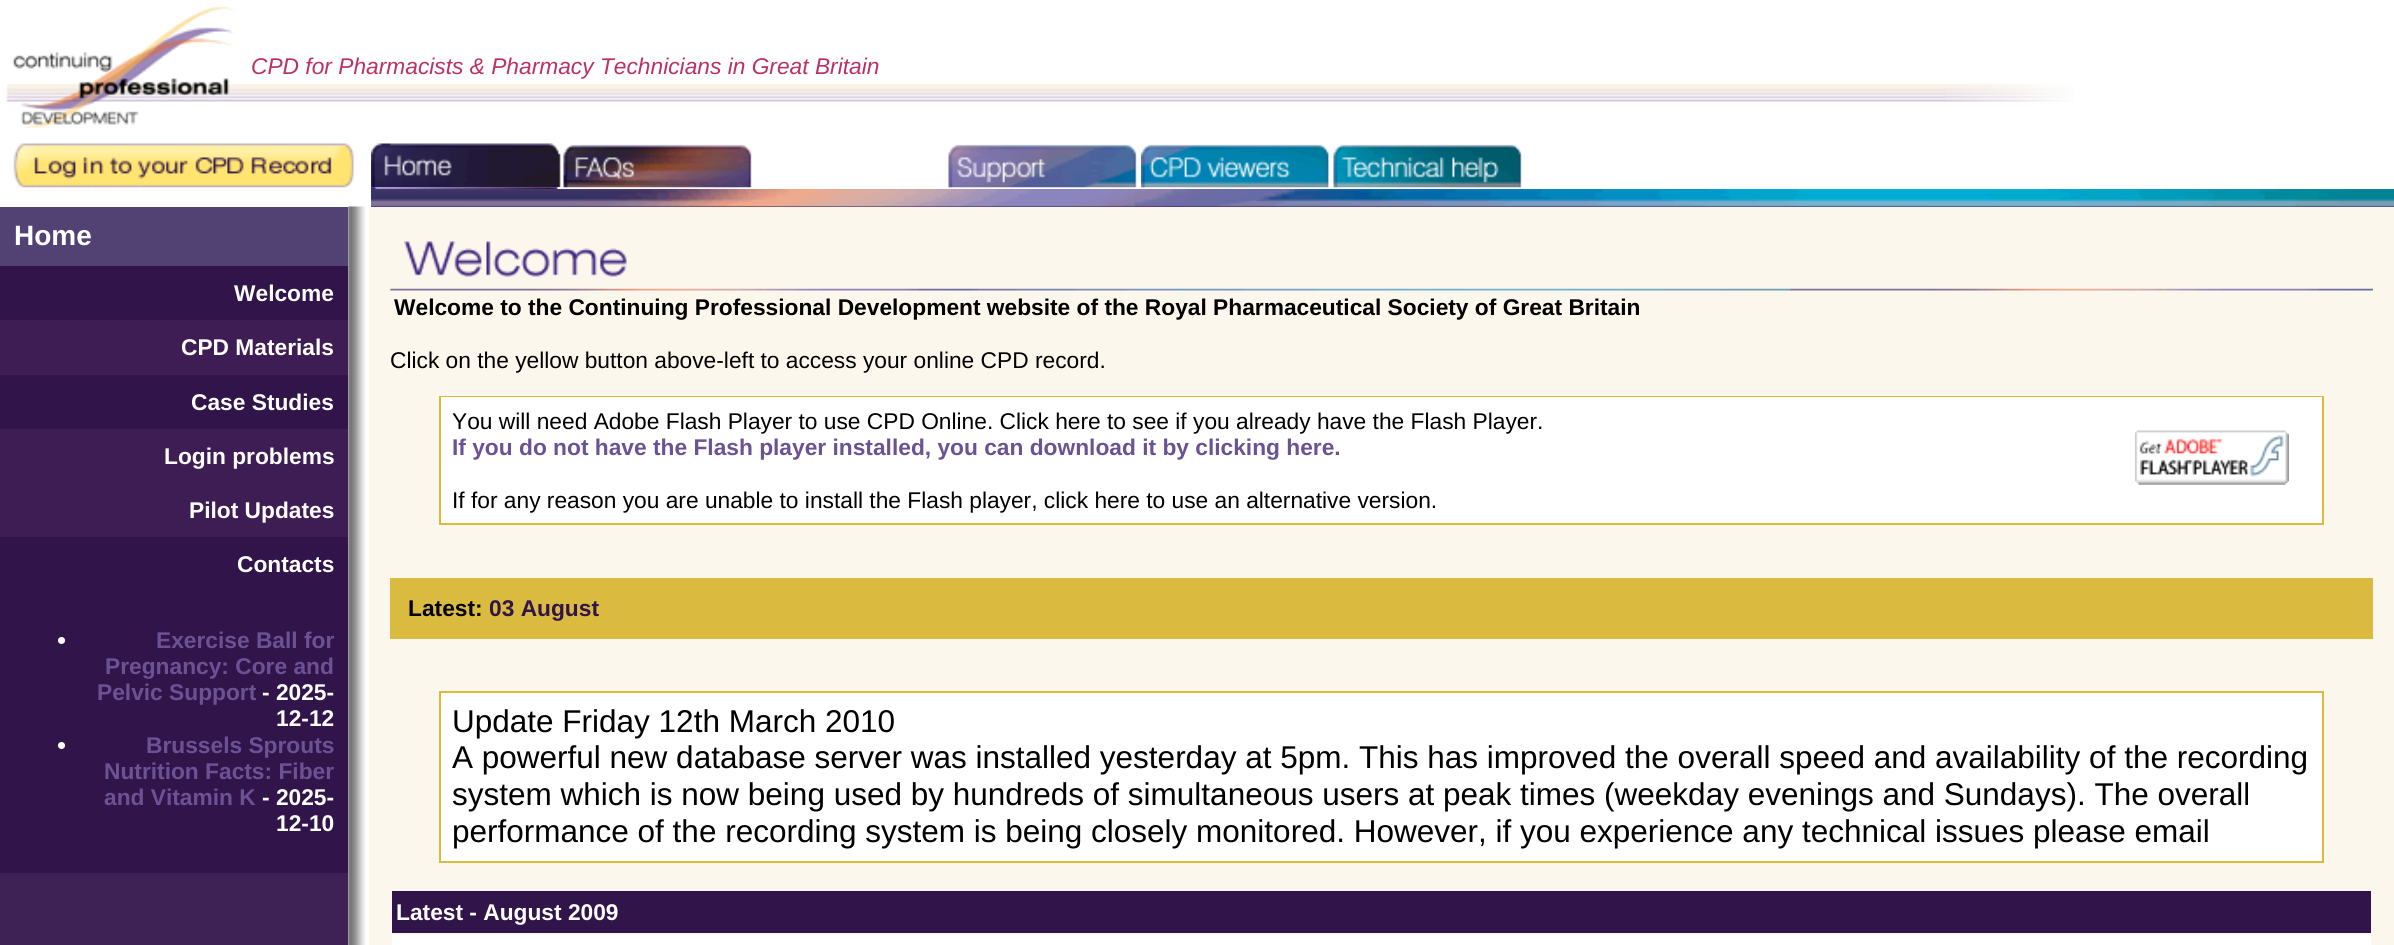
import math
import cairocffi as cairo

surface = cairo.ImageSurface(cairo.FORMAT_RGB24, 2394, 945)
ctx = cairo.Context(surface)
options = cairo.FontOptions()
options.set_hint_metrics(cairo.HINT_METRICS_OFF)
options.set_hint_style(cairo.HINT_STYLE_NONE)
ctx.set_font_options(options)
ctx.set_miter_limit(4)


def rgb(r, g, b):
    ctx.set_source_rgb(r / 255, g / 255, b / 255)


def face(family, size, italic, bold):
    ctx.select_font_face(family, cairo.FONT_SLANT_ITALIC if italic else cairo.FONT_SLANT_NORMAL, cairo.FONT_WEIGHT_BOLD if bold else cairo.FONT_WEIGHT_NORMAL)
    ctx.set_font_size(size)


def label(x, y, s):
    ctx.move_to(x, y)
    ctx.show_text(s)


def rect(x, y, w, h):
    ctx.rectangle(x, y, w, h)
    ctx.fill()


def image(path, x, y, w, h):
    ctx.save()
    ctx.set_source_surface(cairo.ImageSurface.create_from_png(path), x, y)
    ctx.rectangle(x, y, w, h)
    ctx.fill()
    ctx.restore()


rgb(255, 255, 255)
ctx.paint()
image('image0.png', 6, 6, 232, 123)
image('image1.png', 238, 83, 1710, 19)
face('Liberation Sans', 22.75, 1, 0)
rgb(187, 49, 100)
label(251, 74, 'CPD for Pharmacists & Pharmacy Technicians in Great Britain')
image('image2.png', 1947, 83, 127, 19)
image('image3.png', 13, 143, 341, 45)
image('image4.png', 371, 143, 190, 45)
image('image5.png', 563, 144, 189, 44)
image('image6.png', 948, 144, 189, 44)
image('image7.png', 1141, 144, 188, 44)
image('image8.png', 1333, 144, 189, 44)
image('image9.png', 371, 187, 193, 2)
rgb(49, 20, 74)
rect(371, 206, 2023, 1)
image('image10.png', 371, 189, 2023, 18)
rgb(62, 34, 85)
rect(0, 873, 348, 72)
rgb(82, 66, 116)
rect(0, 207, 348, 59)
face('Liberation Sans', 28, 0, 1)
rgb(255, 255, 255)
label(14, 245, 'Home')
rgb(49, 20, 74)
rect(0, 266, 348, 54)
face('Liberation Sans', 22.75, 0, 1)
rgb(255, 255, 255)
label(234, 301, 'Welcome')
rgb(62, 29, 84)
rect(0, 320, 348, 55)
rgb(255, 255, 255)
label(181, 355, 'CPD Materials')
rgb(49, 20, 74)
rect(0, 375, 348, 54)
rgb(255, 255, 255)
label(191, 410, 'Case Studies')
rgb(62, 29, 84)
rect(0, 429, 348, 108)
rgb(255, 255, 255)
label(164, 464, 'Login problems')
label(189, 518, 'Pilot Updates')
rgb(49, 20, 74)
rect(0, 537, 348, 336)
rgb(255, 255, 255)
label(237, 572, 'Contacts')
ctx.new_path()
ctx.arc(61.5, 640.5, 3.5, 0, 2 * math.pi)
ctx.fill()
rgb(107, 82, 148)
label(156, 648, 'Exercise Ball for')
label(105, 674, 'Pregnancy: Core and')
label(97, 700, 'Pelvic Support')
rgb(255, 255, 255)
label(262, 700, '- 2025-')
label(276, 726, '12-12')
ctx.new_path()
ctx.arc(61.5, 745.5, 3.5, 0, 2 * math.pi)
ctx.fill()
rgb(107, 82, 148)
label(146, 753, 'Brussels Sprouts')
label(104, 779, 'Nutrition Facts: Fiber')
label(104, 805, 'and Vitamin K')
rgb(255, 255, 255)
label(262, 805, '- 2025-')
label(276, 831, '12-10')
image('image11.png', 348, 206, 18, 739)
rgb(252, 247, 237)
rect(369, 207, 2025, 738)
image('image12.png', 390, 288, 1983, 3)
image('image13.png', 404, 241, 223, 36)
rgb(0, 0, 0)
label(394, 315, 'Welcome to the Continuing Professional Development website of the Royal Pharmaceutical Society of Great Britain')
face('Liberation Sans', 22.75, 0, 0)
label(390, 368, 'Click on the yellow button above-left to access your online CPD record.')
rgb(218, 187, 63)
rect(439, 396, 1885, 129)
rgb(255, 255, 255)
rect(441, 397, 1881, 126)
rgb(0, 0, 0)
label(452, 429, 'You will need Adobe Flash Player to use CPD Online. Click here to see if you already have the Flash Player.')
face('Liberation Sans', 22.75, 0, 1)
rgb(107, 82, 148)
label(452, 455, 'If you do not have the Flash player installed, you can download it by clicking here.')
image('image14.png', 2135, 430, 154, 55)
face('Liberation Sans', 22.75, 0, 0)
rgb(0, 0, 0)
label(452, 508, 'If for any reason you are unable to install the Flash player, click here to use an alternative version.')
rgb(218, 187, 63)
rect(390, 578, 1983, 61)
face('Liberation Sans', 22.75, 0, 1)
rgb(0, 0, 0)
label(408, 616, 'Latest:')
rgb(49, 20, 74)
label(489, 616, '03 August')
rgb(218, 187, 63)
rect(439, 691, 1885, 172)
rgb(255, 255, 255)
rect(441, 693, 1881, 168)
face('Liberation Sans', 31.5, 0, 0)
rgb(0, 0, 0)
label(452, 732, 'Update Friday 12th March 2010')
label(452, 768, 'A powerful new database server was installed yesterday at 5pm. This has improved the overall speed and availability of the recording')
label(452, 805, 'system which is now being used by hundreds of simultaneous users at peak times (weekday evenings and Sundays). The overall')
label(452, 842, 'performance of the recording system is being closely monitored. However, if you experience any technical issues please email')
rgb(49, 20, 74)
rect(392, 891, 1979, 42)
face('Liberation Sans', 22.75, 0, 1)
rgb(255, 255, 255)
label(396, 920, 'Latest - August 2009')
rect(392, 935, 1979, 10)
surface.write_to_png('render.png')
